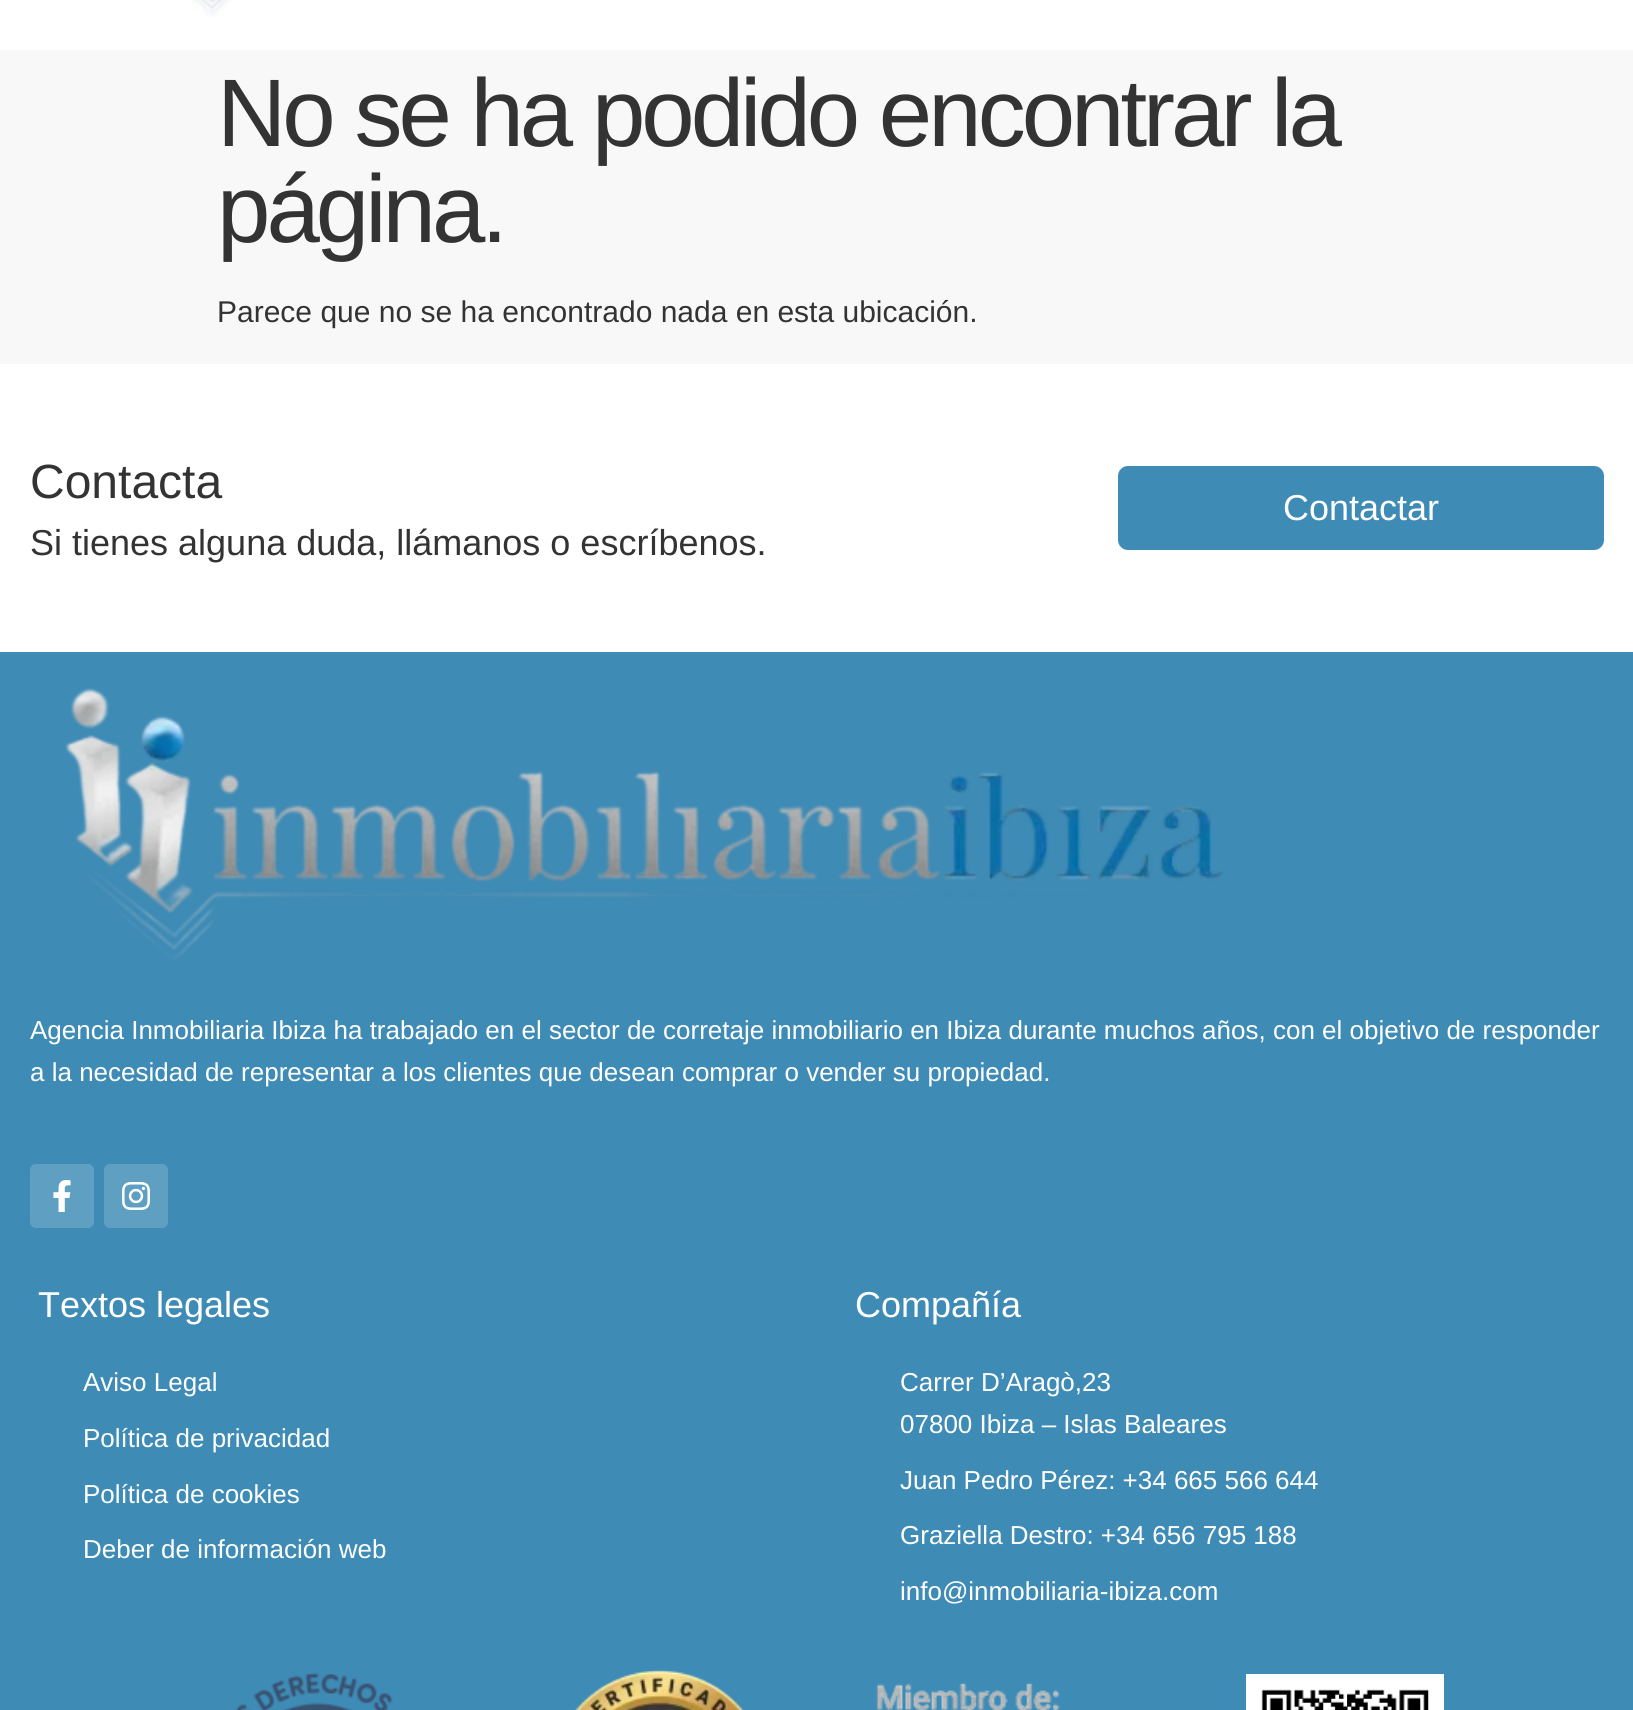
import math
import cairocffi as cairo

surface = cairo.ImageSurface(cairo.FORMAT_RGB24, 1633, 1710)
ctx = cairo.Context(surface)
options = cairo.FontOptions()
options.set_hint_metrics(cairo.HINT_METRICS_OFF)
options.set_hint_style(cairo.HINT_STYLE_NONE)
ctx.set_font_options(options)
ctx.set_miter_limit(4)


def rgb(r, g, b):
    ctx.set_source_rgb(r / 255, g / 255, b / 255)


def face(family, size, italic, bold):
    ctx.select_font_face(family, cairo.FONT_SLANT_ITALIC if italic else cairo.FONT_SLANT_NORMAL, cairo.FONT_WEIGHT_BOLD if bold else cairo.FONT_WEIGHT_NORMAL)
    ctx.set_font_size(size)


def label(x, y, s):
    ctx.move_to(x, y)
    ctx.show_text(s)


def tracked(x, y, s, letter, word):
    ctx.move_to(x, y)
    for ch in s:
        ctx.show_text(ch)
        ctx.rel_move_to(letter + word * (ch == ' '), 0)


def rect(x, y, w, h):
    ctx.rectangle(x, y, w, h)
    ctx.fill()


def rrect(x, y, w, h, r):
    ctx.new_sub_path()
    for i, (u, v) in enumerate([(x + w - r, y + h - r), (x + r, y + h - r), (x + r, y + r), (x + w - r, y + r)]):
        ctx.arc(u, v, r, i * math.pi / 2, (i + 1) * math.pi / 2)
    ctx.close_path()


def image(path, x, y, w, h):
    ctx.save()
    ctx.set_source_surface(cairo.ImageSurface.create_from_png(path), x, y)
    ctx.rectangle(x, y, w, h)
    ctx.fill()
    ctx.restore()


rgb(248, 248, 248)
ctx.paint()
rgb(255, 255, 255)
rect(0, 0, 1633, 50)
image('image0.png', 192, 0, 40, 17)
face('Liberation Sans', 96, 0, 0)
rgb(51, 51, 51)
tracked(217, 146, 'No se ha podido encontrar la', -4, 0)
tracked(217, 242, 'página.', -4, 0)
face('Liberation Sans', 30, 0, 0)
label(217, 322, 'Parece que no se ha encontrado nada en esta ubicación.')
rgb(255, 255, 255)
rect(0, 364, 1633, 288)
face('Liberation Sans', 48, 0, 0)
rgb(51, 51, 51)
label(30, 498, 'Contacta')
face('Liberation Sans', 36, 0, 0)
label(30, 555, 'Si tienes alguna duda, llámanos o escríbenos.')
rgb(62, 139, 182)
rrect(1118, 466, 486, 84, 10)
ctx.fill()
rgb(255, 255, 255)
label(1283, 520, 'Contactar')
rgb(62, 139, 182)
rect(0, 652, 1633, 1058)
image('image1.png', 65, 687, 1158, 273)
face('Liberation Sans', 26, 0, 0)
rgb(255, 255, 255)
label(30, 1039, 'Agencia Inmobiliaria Ibiza ha trabajado en el sector de corretaje inmobiliario en Ibiza durante muchos años, con el objetivo de responder')
label(30, 1081, 'a la necesidad de representar a los clientes que desean comprar o vender su propiedad.')
rgb(95, 159, 194)
rrect(30, 1164, 64, 64, 6)
ctx.fill()
image('image2.png', 53, 1180, 18, 32)
rrect(104, 1164, 64, 64, 6)
ctx.fill()
image('image3.png', 122, 1182, 28, 28)
face('Liberation Sans', 36, 0, 0)
rgb(255, 255, 255)
label(38, 1317, 'Textos legales')
face('Liberation Sans', 26, 0, 0)
label(83, 1391, 'Aviso Legal')
label(83, 1447, 'Política de privacidad')
label(83, 1503, 'Política de cookies')
label(83, 1558, 'Deber de información web')
image('image4.png', 236, 1672, 157, 38)
image('image5.png', 574, 1669, 170, 41)
face('Liberation Sans', 36, 0, 0)
label(855, 1317, 'Compañía')
face('Liberation Sans', 26, 0, 0)
label(900, 1391, 'Carrer D’Aragò,23')
label(900, 1433, '07800 Ibiza – Islas Baleares')
label(900, 1489, 'Juan Pedro Pérez: +34 665 566 644')
label(900, 1544, 'Graziella Destro: +34 656 795 188')
label(900, 1600, 'info@inmobiliaria-ibiza.com')
image('image6.png', 876, 1682, 184, 28)
image('image7.png', 1246, 1674, 198, 36)
surface.write_to_png('render.png')
